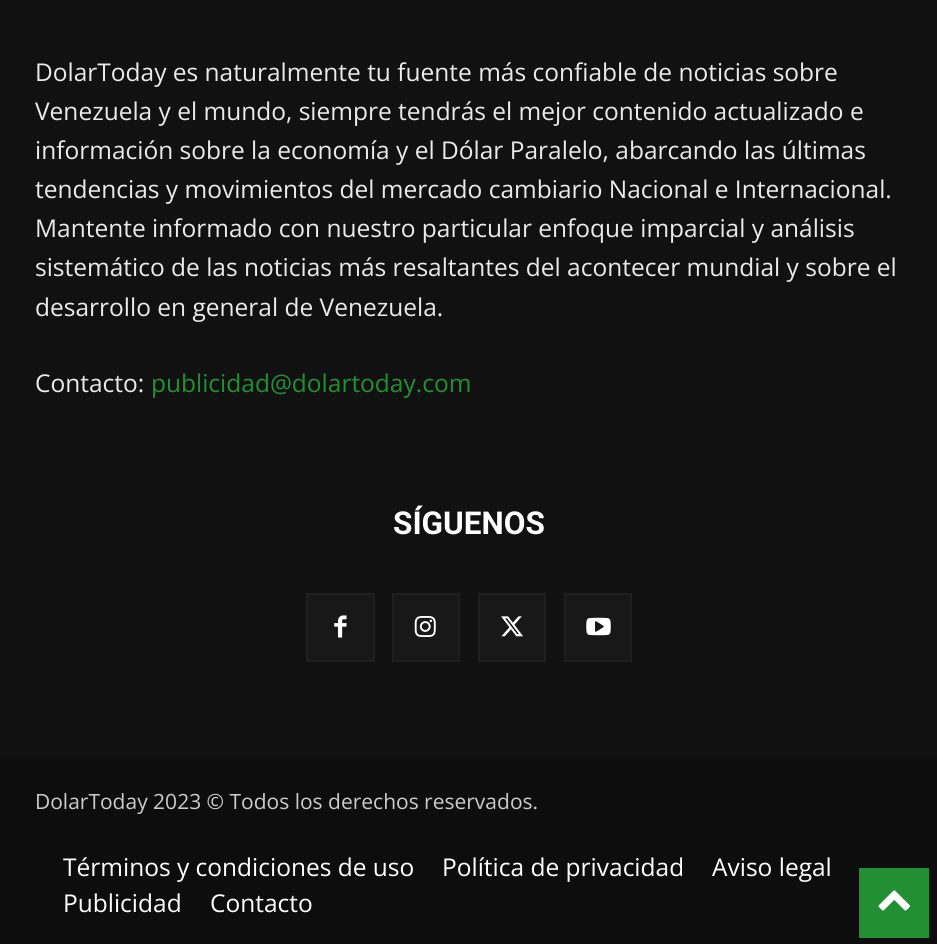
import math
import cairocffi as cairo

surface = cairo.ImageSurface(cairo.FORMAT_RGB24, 937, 944)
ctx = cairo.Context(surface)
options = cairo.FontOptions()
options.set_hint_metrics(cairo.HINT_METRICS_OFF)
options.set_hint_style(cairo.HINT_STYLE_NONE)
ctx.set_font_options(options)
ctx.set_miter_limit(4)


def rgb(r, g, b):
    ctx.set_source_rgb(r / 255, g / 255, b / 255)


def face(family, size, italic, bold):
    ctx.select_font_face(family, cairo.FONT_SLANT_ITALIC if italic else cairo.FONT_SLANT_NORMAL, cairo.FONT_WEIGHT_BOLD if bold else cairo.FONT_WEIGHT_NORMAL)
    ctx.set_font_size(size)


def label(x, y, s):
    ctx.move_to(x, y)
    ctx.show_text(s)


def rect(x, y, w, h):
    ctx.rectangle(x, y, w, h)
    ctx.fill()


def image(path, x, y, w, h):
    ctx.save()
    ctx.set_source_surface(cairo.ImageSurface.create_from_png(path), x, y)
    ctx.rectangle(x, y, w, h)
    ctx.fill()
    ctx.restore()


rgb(17, 17, 17)
ctx.paint()
face('Open Sans', 24.5, 0, 0)
rgb(234, 234, 234)
label(35, 81, 'DolarToday es naturalmente tu fuente más confiable de noticias sobre')
label(35, 120, 'Venezuela y el mundo, siempre tendrás el mejor contenido actualizado e')
label(35, 159, 'información sobre la economía y el Dólar Paralelo, abarcando las últimas')
label(35, 198, 'tendencias y movimientos del mercado cambiario Nacional e Internacional.')
label(35, 237, 'Mantente informado con nuestro particular enfoque imparcial y análisis')
label(35, 276, 'sistemático de las noticias más resaltantes del acontecer mundial y sobre el')
label(35, 316, 'desarrollo en general de Venezuela.')
label(35, 392, 'Contacto:')
rgb(35, 143, 53)
label(151, 392, 'publicidad@dolartoday.com')
face('Roboto', 31.5, 0, 1)
rgb(255, 255, 255)
label(393, 534, 'SÍGUENOS')
rgb(24, 24, 24)
ctx.rectangle(307, 594, 67, 67)
ctx.fill_preserve()
rgb(31, 31, 31)
ctx.stroke()
image('image0.png', 334, 615, 13, 23)
rgb(24, 24, 24)
ctx.rectangle(393, 594, 66, 67)
ctx.fill_preserve()
rgb(31, 31, 31)
ctx.stroke()
image('image1.png', 414, 616, 22, 21)
rgb(24, 24, 24)
ctx.rectangle(479, 594, 66, 67)
ctx.fill_preserve()
rgb(31, 31, 31)
ctx.stroke()
image('image2.png', 501, 616, 22, 21)
rgb(24, 24, 24)
ctx.rectangle(565, 594, 66, 67)
ctx.fill_preserve()
rgb(31, 31, 31)
ctx.stroke()
image('image3.png', 586, 617, 25, 19)
rgb(13, 13, 13)
rect(0, 758, 937, 186)
face('Open Sans', 21, 0, 0)
rgb(204, 204, 204)
label(35, 809, 'DolarToday 2023 © Todos los derechos reservados.')
face('Open Sans', 24.5, 0, 0)
rgb(255, 255, 255)
label(63, 876, 'Términos y condiciones de uso')
label(442, 876, 'Política de privacidad')
label(712, 876, 'Aviso legal')
label(63, 912, 'Publicidad')
label(210, 912, 'Contacto')
rgb(35, 143, 53)
rect(859, 868, 70, 70)
image('image4.png', 878, 890, 32, 21)
surface.write_to_png('render.png')
